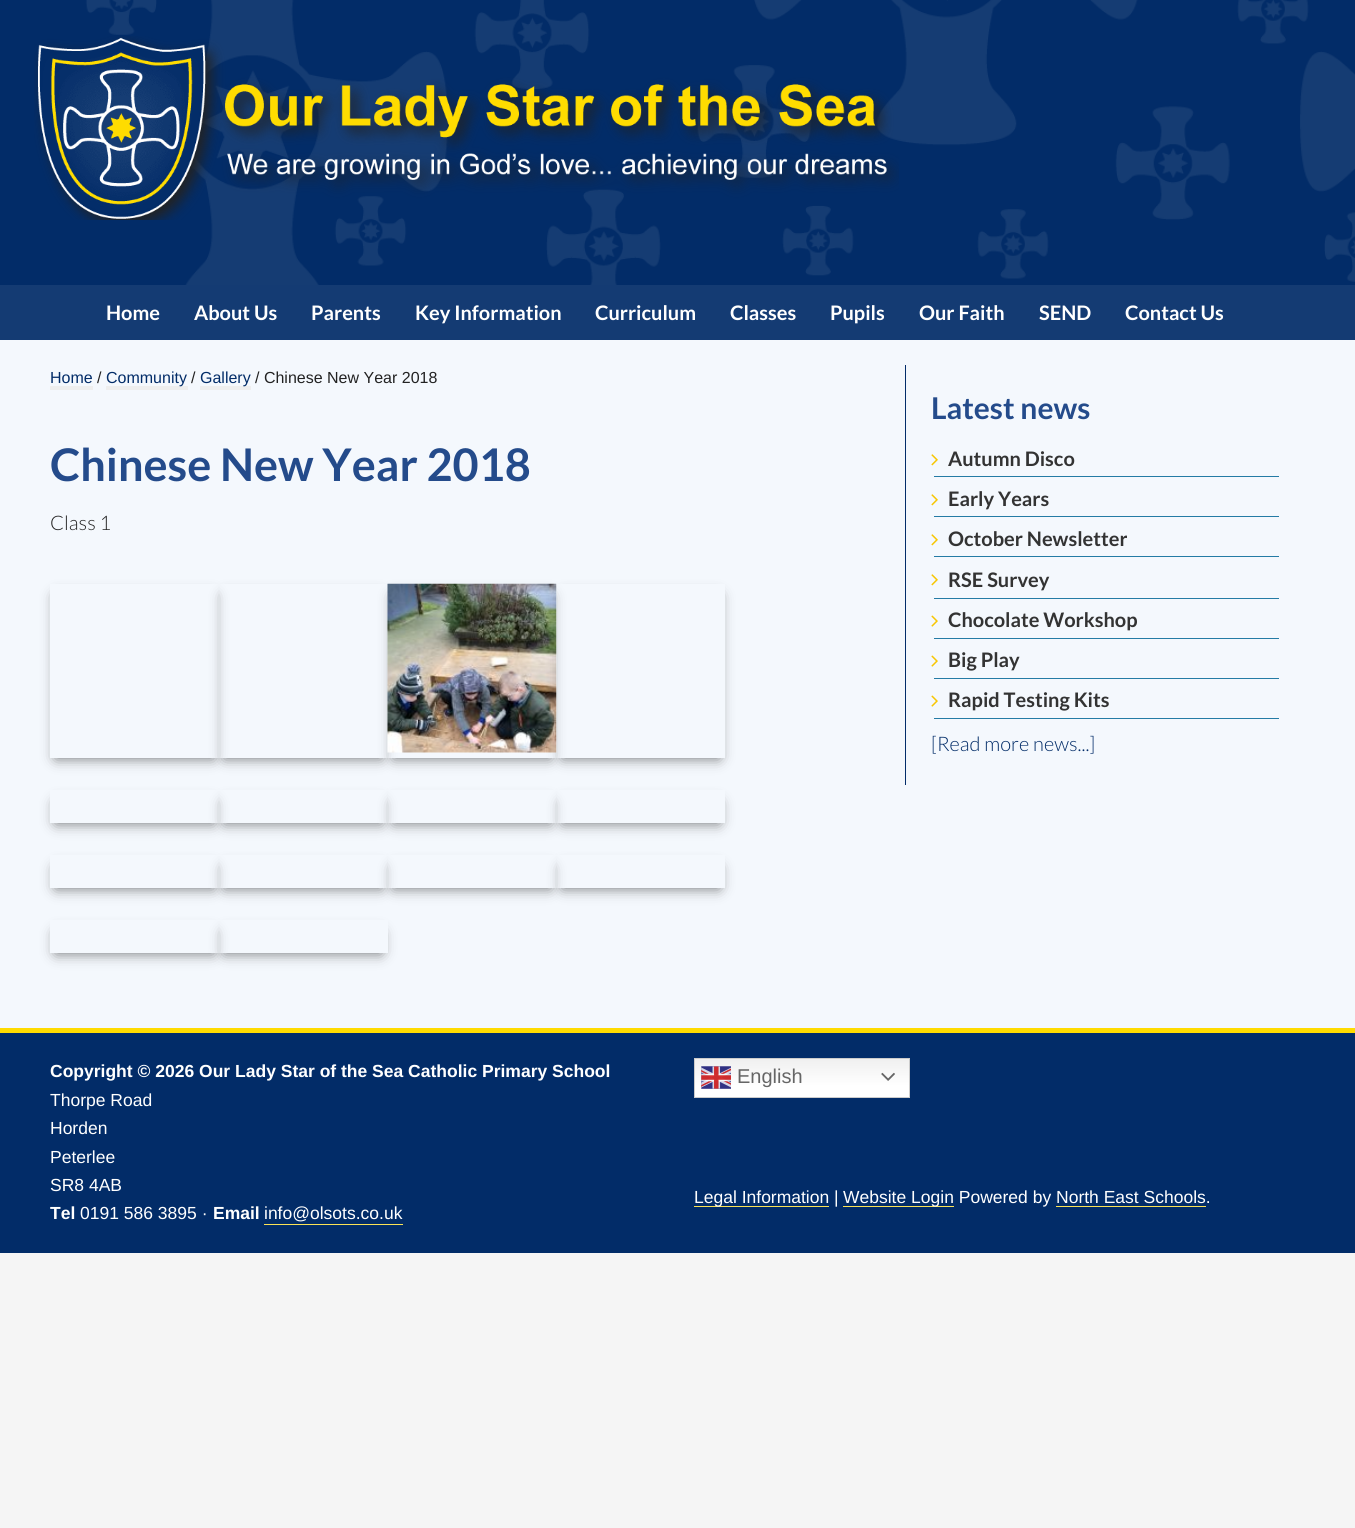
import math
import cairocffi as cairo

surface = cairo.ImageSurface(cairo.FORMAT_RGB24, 1355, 1528)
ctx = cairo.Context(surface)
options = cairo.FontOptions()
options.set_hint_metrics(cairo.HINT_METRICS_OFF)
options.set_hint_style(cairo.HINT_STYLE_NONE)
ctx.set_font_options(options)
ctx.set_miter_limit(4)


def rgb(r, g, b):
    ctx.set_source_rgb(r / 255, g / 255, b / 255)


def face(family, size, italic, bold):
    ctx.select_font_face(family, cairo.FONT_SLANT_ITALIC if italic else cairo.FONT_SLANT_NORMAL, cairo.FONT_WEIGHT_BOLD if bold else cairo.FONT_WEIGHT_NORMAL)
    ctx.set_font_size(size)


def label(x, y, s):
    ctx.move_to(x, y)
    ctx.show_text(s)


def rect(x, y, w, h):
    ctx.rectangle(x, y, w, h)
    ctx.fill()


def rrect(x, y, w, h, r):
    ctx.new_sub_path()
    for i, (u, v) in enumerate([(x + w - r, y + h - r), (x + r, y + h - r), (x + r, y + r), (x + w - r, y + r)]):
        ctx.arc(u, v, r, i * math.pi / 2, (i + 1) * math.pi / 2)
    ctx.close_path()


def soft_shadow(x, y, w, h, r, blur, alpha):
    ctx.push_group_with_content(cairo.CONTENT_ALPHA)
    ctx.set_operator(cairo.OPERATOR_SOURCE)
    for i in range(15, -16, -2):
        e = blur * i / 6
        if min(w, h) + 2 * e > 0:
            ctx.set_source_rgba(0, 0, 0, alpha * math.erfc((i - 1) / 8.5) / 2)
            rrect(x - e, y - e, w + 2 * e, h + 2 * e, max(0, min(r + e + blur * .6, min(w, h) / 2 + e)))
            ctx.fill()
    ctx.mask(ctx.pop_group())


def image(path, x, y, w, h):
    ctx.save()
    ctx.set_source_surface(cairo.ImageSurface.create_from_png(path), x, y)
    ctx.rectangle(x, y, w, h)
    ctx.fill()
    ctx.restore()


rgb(245, 245, 245)
ctx.paint()
image('image0.png', 0, 0, 1355, 285)
image('image1.png', 34, 36, 865, 184)
rgb(20, 59, 115)
rect(0, 285, 1355, 55)
face('Lato', 20, 0, 1)
rgb(255, 255, 255)
label(106, 320, 'Home')
label(194, 320, 'About Us')
label(311, 320, 'Parents')
label(415, 320, 'Key Information')
label(595, 320, 'Curriculum')
label(730, 320, 'Classes')
label(830, 320, 'Pupils')
label(919, 320, 'Our Faith')
label(1039, 320, 'SEND')
label(1125, 320, 'Contact Us')
rgb(244, 248, 253)
rect(0, 340, 1355, 688)
face('Liberation Sans', 16, 0, 0)
rgb(2, 44, 104)
label(50, 383, 'Home')
rgb(238, 238, 238)
rect(50, 386, 43, 4)
rgb(34, 34, 34)
label(97, 383, '/')
rgb(238, 238, 238)
rect(106, 386, 82, 4)
rgb(2, 44, 104)
label(106, 383, 'Community')
rgb(34, 34, 34)
label(191, 383, '/')
rgb(238, 238, 238)
rect(200, 386, 51, 4)
rgb(2, 44, 104)
label(200, 383, 'Gallery')
rgb(34, 34, 34)
label(255, 383, '/ Chinese New Year 2018')
face('Lato', 45, 0, 1)
rgb(36, 75, 139)
label(50, 481, 'Chinese New Year 2018')
face('Lato Light', 20, 0, 0)
rgb(34, 34, 34)
label(50, 530, 'Class 1')
ctx.save()
ctx.set_fill_rule(cairo.FILL_RULE_EVEN_ODD)
ctx.new_path()
ctx.move_to(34, 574)
ctx.line_to(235, 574)
ctx.line_to(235, 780)
ctx.line_to(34, 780)
ctx.close_path()
ctx.move_to(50, 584)
ctx.line_to(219, 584)
ctx.line_to(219, 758)
ctx.line_to(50, 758)
ctx.close_path()
ctx.clip()
rgb(0, 0, 0)
soft_shadow(56, 596, 157, 162, 0, 7, 0.56)
ctx.restore()
ctx.save()
ctx.set_fill_rule(cairo.FILL_RULE_EVEN_ODD)
ctx.new_path()
ctx.move_to(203, 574)
ctx.line_to(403, 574)
ctx.line_to(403, 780)
ctx.line_to(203, 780)
ctx.close_path()
ctx.move_to(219, 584)
ctx.line_to(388, 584)
ctx.line_to(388, 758)
ctx.line_to(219, 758)
ctx.close_path()
ctx.clip()
rgb(0, 0, 0)
soft_shadow(225, 596, 156, 162, 0, 7, 0.56)
ctx.restore()
ctx.save()
ctx.set_fill_rule(cairo.FILL_RULE_EVEN_ODD)
ctx.new_path()
ctx.move_to(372, 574)
ctx.line_to(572, 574)
ctx.line_to(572, 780)
ctx.line_to(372, 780)
ctx.close_path()
ctx.move_to(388, 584)
ctx.line_to(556, 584)
ctx.line_to(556, 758)
ctx.line_to(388, 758)
ctx.close_path()
ctx.clip()
rgb(0, 0, 0)
soft_shadow(394, 596, 156, 162, 0, 7, 0.56)
ctx.restore()
image('image2.png', 387, 583, 170, 170)
ctx.save()
ctx.set_fill_rule(cairo.FILL_RULE_EVEN_ODD)
ctx.new_path()
ctx.move_to(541, 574)
ctx.line_to(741, 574)
ctx.line_to(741, 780)
ctx.line_to(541, 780)
ctx.close_path()
ctx.move_to(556, 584)
ctx.line_to(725, 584)
ctx.line_to(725, 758)
ctx.line_to(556, 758)
ctx.close_path()
ctx.clip()
rgb(0, 0, 0)
soft_shadow(563, 596, 156, 162, 0, 7, 0.56)
ctx.restore()
ctx.save()
ctx.set_fill_rule(cairo.FILL_RULE_EVEN_ODD)
ctx.new_path()
ctx.move_to(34, 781)
ctx.line_to(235, 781)
ctx.line_to(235, 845)
ctx.line_to(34, 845)
ctx.close_path()
ctx.move_to(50, 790)
ctx.line_to(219, 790)
ctx.line_to(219, 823)
ctx.line_to(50, 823)
ctx.close_path()
ctx.clip()
rgb(0, 0, 0)
soft_shadow(56, 803, 157, 20, 0, 7, 0.56)
ctx.restore()
ctx.save()
ctx.set_fill_rule(cairo.FILL_RULE_EVEN_ODD)
ctx.new_path()
ctx.move_to(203, 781)
ctx.line_to(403, 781)
ctx.line_to(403, 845)
ctx.line_to(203, 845)
ctx.close_path()
ctx.move_to(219, 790)
ctx.line_to(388, 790)
ctx.line_to(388, 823)
ctx.line_to(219, 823)
ctx.close_path()
ctx.clip()
rgb(0, 0, 0)
soft_shadow(225, 803, 156, 20, 0, 7, 0.56)
ctx.restore()
ctx.save()
ctx.set_fill_rule(cairo.FILL_RULE_EVEN_ODD)
ctx.new_path()
ctx.move_to(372, 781)
ctx.line_to(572, 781)
ctx.line_to(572, 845)
ctx.line_to(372, 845)
ctx.close_path()
ctx.move_to(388, 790)
ctx.line_to(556, 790)
ctx.line_to(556, 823)
ctx.line_to(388, 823)
ctx.close_path()
ctx.clip()
rgb(0, 0, 0)
soft_shadow(394, 803, 156, 20, 0, 7, 0.56)
ctx.restore()
ctx.save()
ctx.set_fill_rule(cairo.FILL_RULE_EVEN_ODD)
ctx.new_path()
ctx.move_to(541, 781)
ctx.line_to(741, 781)
ctx.line_to(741, 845)
ctx.line_to(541, 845)
ctx.close_path()
ctx.move_to(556, 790)
ctx.line_to(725, 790)
ctx.line_to(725, 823)
ctx.line_to(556, 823)
ctx.close_path()
ctx.clip()
rgb(0, 0, 0)
soft_shadow(563, 803, 156, 20, 0, 7, 0.56)
ctx.restore()
ctx.save()
ctx.set_fill_rule(cairo.FILL_RULE_EVEN_ODD)
ctx.new_path()
ctx.move_to(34, 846)
ctx.line_to(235, 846)
ctx.line_to(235, 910)
ctx.line_to(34, 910)
ctx.close_path()
ctx.move_to(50, 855)
ctx.line_to(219, 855)
ctx.line_to(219, 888)
ctx.line_to(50, 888)
ctx.close_path()
ctx.clip()
rgb(0, 0, 0)
soft_shadow(56, 868, 157, 20, 0, 7, 0.56)
ctx.restore()
ctx.save()
ctx.set_fill_rule(cairo.FILL_RULE_EVEN_ODD)
ctx.new_path()
ctx.move_to(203, 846)
ctx.line_to(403, 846)
ctx.line_to(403, 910)
ctx.line_to(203, 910)
ctx.close_path()
ctx.move_to(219, 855)
ctx.line_to(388, 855)
ctx.line_to(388, 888)
ctx.line_to(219, 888)
ctx.close_path()
ctx.clip()
rgb(0, 0, 0)
soft_shadow(225, 868, 156, 20, 0, 7, 0.56)
ctx.restore()
ctx.save()
ctx.set_fill_rule(cairo.FILL_RULE_EVEN_ODD)
ctx.new_path()
ctx.move_to(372, 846)
ctx.line_to(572, 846)
ctx.line_to(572, 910)
ctx.line_to(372, 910)
ctx.close_path()
ctx.move_to(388, 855)
ctx.line_to(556, 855)
ctx.line_to(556, 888)
ctx.line_to(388, 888)
ctx.close_path()
ctx.clip()
rgb(0, 0, 0)
soft_shadow(394, 868, 156, 20, 0, 7, 0.56)
ctx.restore()
ctx.save()
ctx.set_fill_rule(cairo.FILL_RULE_EVEN_ODD)
ctx.new_path()
ctx.move_to(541, 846)
ctx.line_to(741, 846)
ctx.line_to(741, 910)
ctx.line_to(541, 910)
ctx.close_path()
ctx.move_to(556, 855)
ctx.line_to(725, 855)
ctx.line_to(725, 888)
ctx.line_to(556, 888)
ctx.close_path()
ctx.clip()
rgb(0, 0, 0)
soft_shadow(563, 868, 156, 20, 0, 7, 0.56)
ctx.restore()
ctx.save()
ctx.set_fill_rule(cairo.FILL_RULE_EVEN_ODD)
ctx.new_path()
ctx.move_to(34, 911)
ctx.line_to(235, 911)
ctx.line_to(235, 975)
ctx.line_to(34, 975)
ctx.close_path()
ctx.move_to(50, 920)
ctx.line_to(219, 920)
ctx.line_to(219, 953)
ctx.line_to(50, 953)
ctx.close_path()
ctx.clip()
rgb(0, 0, 0)
soft_shadow(56, 933, 157, 20, 0, 7, 0.56)
ctx.restore()
ctx.save()
ctx.set_fill_rule(cairo.FILL_RULE_EVEN_ODD)
ctx.new_path()
ctx.move_to(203, 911)
ctx.line_to(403, 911)
ctx.line_to(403, 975)
ctx.line_to(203, 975)
ctx.close_path()
ctx.move_to(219, 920)
ctx.line_to(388, 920)
ctx.line_to(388, 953)
ctx.line_to(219, 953)
ctx.close_path()
ctx.clip()
rgb(0, 0, 0)
soft_shadow(225, 933, 156, 20, 0, 7, 0.56)
ctx.restore()
rgb(2, 44, 105)
rect(905, 365, 1, 420)
face('Lato', 30, 0, 1)
rgb(36, 75, 139)
label(931, 419, 'Latest news')
rgb(36, 123, 165)
rect(934, 476, 345, 1)
image('image3.png', 931, 454, 7, 12)
face('Lato', 20, 0, 1)
rgb(51, 51, 51)
label(948, 466, 'Autumn Disco')
rgb(36, 123, 165)
rect(934, 516, 345, 1)
image('image3.png', 931, 494, 7, 12)
rgb(51, 51, 51)
label(948, 506, 'Early Years')
rgb(36, 123, 165)
rect(934, 556, 345, 1)
image('image3.png', 931, 534, 7, 12)
rgb(51, 51, 51)
label(948, 546, 'October Newsletter')
rgb(36, 123, 165)
rect(934, 598, 345, 1)
image('image3.png', 931, 574, 7, 12)
rgb(51, 51, 51)
label(948, 587, 'RSE Survey')
rgb(36, 123, 165)
rect(934, 638, 345, 1)
image('image4.png', 931, 615, 7, 12)
rgb(51, 51, 51)
label(948, 627, 'Chocolate Workshop')
rgb(36, 123, 165)
rect(934, 678, 345, 1)
image('image4.png', 931, 655, 7, 12)
rgb(51, 51, 51)
label(948, 667, 'Big Play')
rgb(36, 123, 165)
rect(934, 718, 345, 1)
image('image4.png', 931, 695, 7, 12)
rgb(51, 51, 51)
label(948, 707, 'Rapid Testing Kits')
face('Lato Light', 20, 0, 0)
rgb(2, 44, 104)
label(931, 751, '[Read more news...]')
rect(0, 1033, 1355, 220)
rgb(255, 219, 0)
rect(0, 1028, 1355, 5)
face('Liberation Sans', 17.5, 0, 1)
rgb(255, 255, 255)
label(50, 1077, 'Copyright © 2026 Our Lady Star of the Sea Catholic Primary School')
face('Liberation Sans', 17.5, 0, 0)
label(50, 1106, 'Thorpe Road')
label(50, 1134, 'Horden')
label(50, 1163, 'Peterlee')
label(50, 1191, 'SR8 4AB')
face('Liberation Sans', 17.5, 0, 1)
label(50, 1219, 'Tel')
face('Liberation Sans', 17.5, 0, 0)
label(80, 1219, '0191 586 3895 ·')
face('Liberation Sans', 17.5, 0, 1)
label(213, 1219, 'Email')
face('Liberation Sans', 17.5, 0, 0)
label(264, 1219, 'info@olsots.co.uk')
rgb(251, 227, 86)
rect(264, 1224, 139, 1)
gradient = cairo.LinearGradient(802, 1058, 802, 1098)
gradient.add_color_stop_rgba(0, 0.937, 0.937, 0.937, 1)
gradient.add_color_stop_rgba(0.7, 1, 1, 1, 1)
ctx.set_source(gradient)
rect(695, 1059, 214, 38)
ctx.rectangle(694.5, 1058.5, 215, 39)
rgb(204, 204, 204)
ctx.set_line_width(1)
ctx.stroke()
image('image5.png', 701, 1066, 30, 23)
face('Liberation Sans', 20, 0, 0)
rgb(102, 102, 102)
label(737, 1083, 'English')
image('image6.png', 881, 1072, 14, 9)
rgb(251, 227, 86)
rect(694, 1206, 135, 1)
face('Liberation Sans', 17.5, 0, 0)
rgb(255, 255, 255)
label(694, 1203, 'Legal Information |')
rgb(251, 227, 86)
rect(843, 1206, 111, 1)
rgb(255, 255, 255)
label(843, 1203, 'Website Login Powered by North East Schools.')
rgb(251, 227, 86)
rect(1056, 1206, 150, 1)
surface.write_to_png('render.png')
